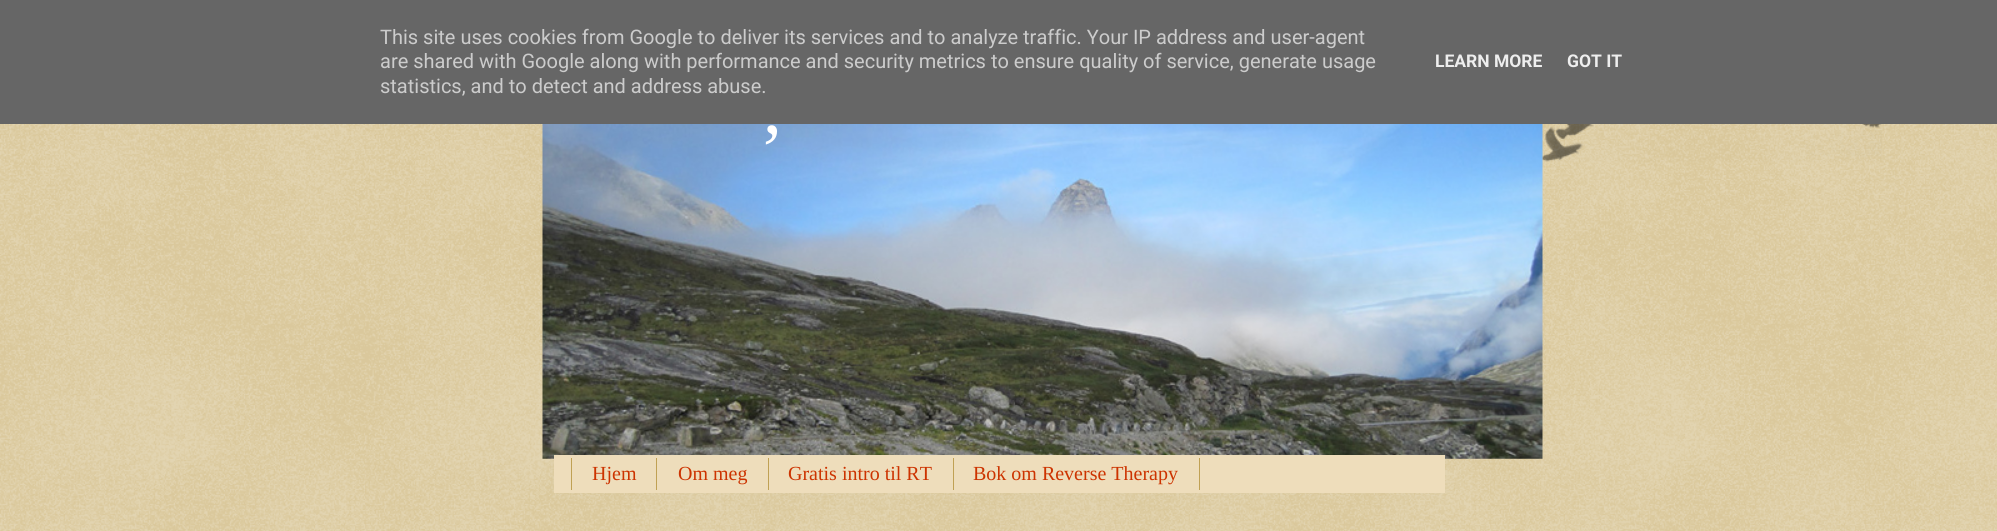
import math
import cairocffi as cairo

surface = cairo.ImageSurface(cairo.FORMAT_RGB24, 1997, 531)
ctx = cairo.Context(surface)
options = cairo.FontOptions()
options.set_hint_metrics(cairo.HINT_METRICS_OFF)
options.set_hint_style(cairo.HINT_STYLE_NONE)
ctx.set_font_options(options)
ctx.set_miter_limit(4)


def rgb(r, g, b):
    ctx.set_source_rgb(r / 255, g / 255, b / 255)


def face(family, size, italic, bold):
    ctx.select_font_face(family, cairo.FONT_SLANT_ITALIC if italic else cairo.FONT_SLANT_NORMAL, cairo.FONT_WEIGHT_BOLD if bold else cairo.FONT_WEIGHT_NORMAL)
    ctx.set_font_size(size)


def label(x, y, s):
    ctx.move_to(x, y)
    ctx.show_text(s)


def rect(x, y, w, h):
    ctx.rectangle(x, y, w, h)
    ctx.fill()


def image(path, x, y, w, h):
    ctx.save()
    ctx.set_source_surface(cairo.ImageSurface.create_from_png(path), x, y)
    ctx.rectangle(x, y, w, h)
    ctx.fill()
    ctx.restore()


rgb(192, 161, 84)
ctx.paint()
image('image0.png', 0, 124, 1997, 407)
rgb(102, 102, 102)
rect(0, 0, 1997, 124)
face('Roboto', 20, 0, 0)
rgb(204, 204, 204)
label(380, 44, 'This site uses cookies from Google to deliver its services and to analyze traffic. Your IP address and user-agent')
label(380, 68, 'are shared with Google along with performance and security metrics to ensure quality of service, generate usage')
label(380, 93, 'statistics, and to detect and address abuse.')
face('Roboto', 17.5, 0, 1)
rgb(238, 238, 238)
label(1435, 67, 'LEARN MORE')
label(1567, 67, 'GOT IT')
image('image2.png', 1542, 124, 340, 38)
image('image1.png', 542, 124, 1001, 335)
face('Liberation Serif', 75, 0, 0)
rgb(255, 255, 255)
label(763, 133, ',')
rgb(238, 221, 187)
rect(554, 455, 891, 38)
rgb(192, 161, 84)
rect(656, 458, 1, 32)
rect(571, 458, 1, 32)
face('Liberation Serif', 20, 0, 0)
rgb(204, 51, 0)
label(592, 480, 'Hjem')
rgb(192, 161, 84)
rect(768, 458, 1, 32)
rgb(204, 51, 0)
label(678, 480, 'Om meg')
rgb(192, 161, 84)
rect(953, 458, 1, 32)
rgb(204, 51, 0)
label(788, 480, 'Gratis intro til RT')
rgb(192, 161, 84)
rect(1199, 458, 1, 32)
rgb(204, 51, 0)
label(973, 480, 'Bok om Reverse Therapy')
surface.write_to_png('render.png')
